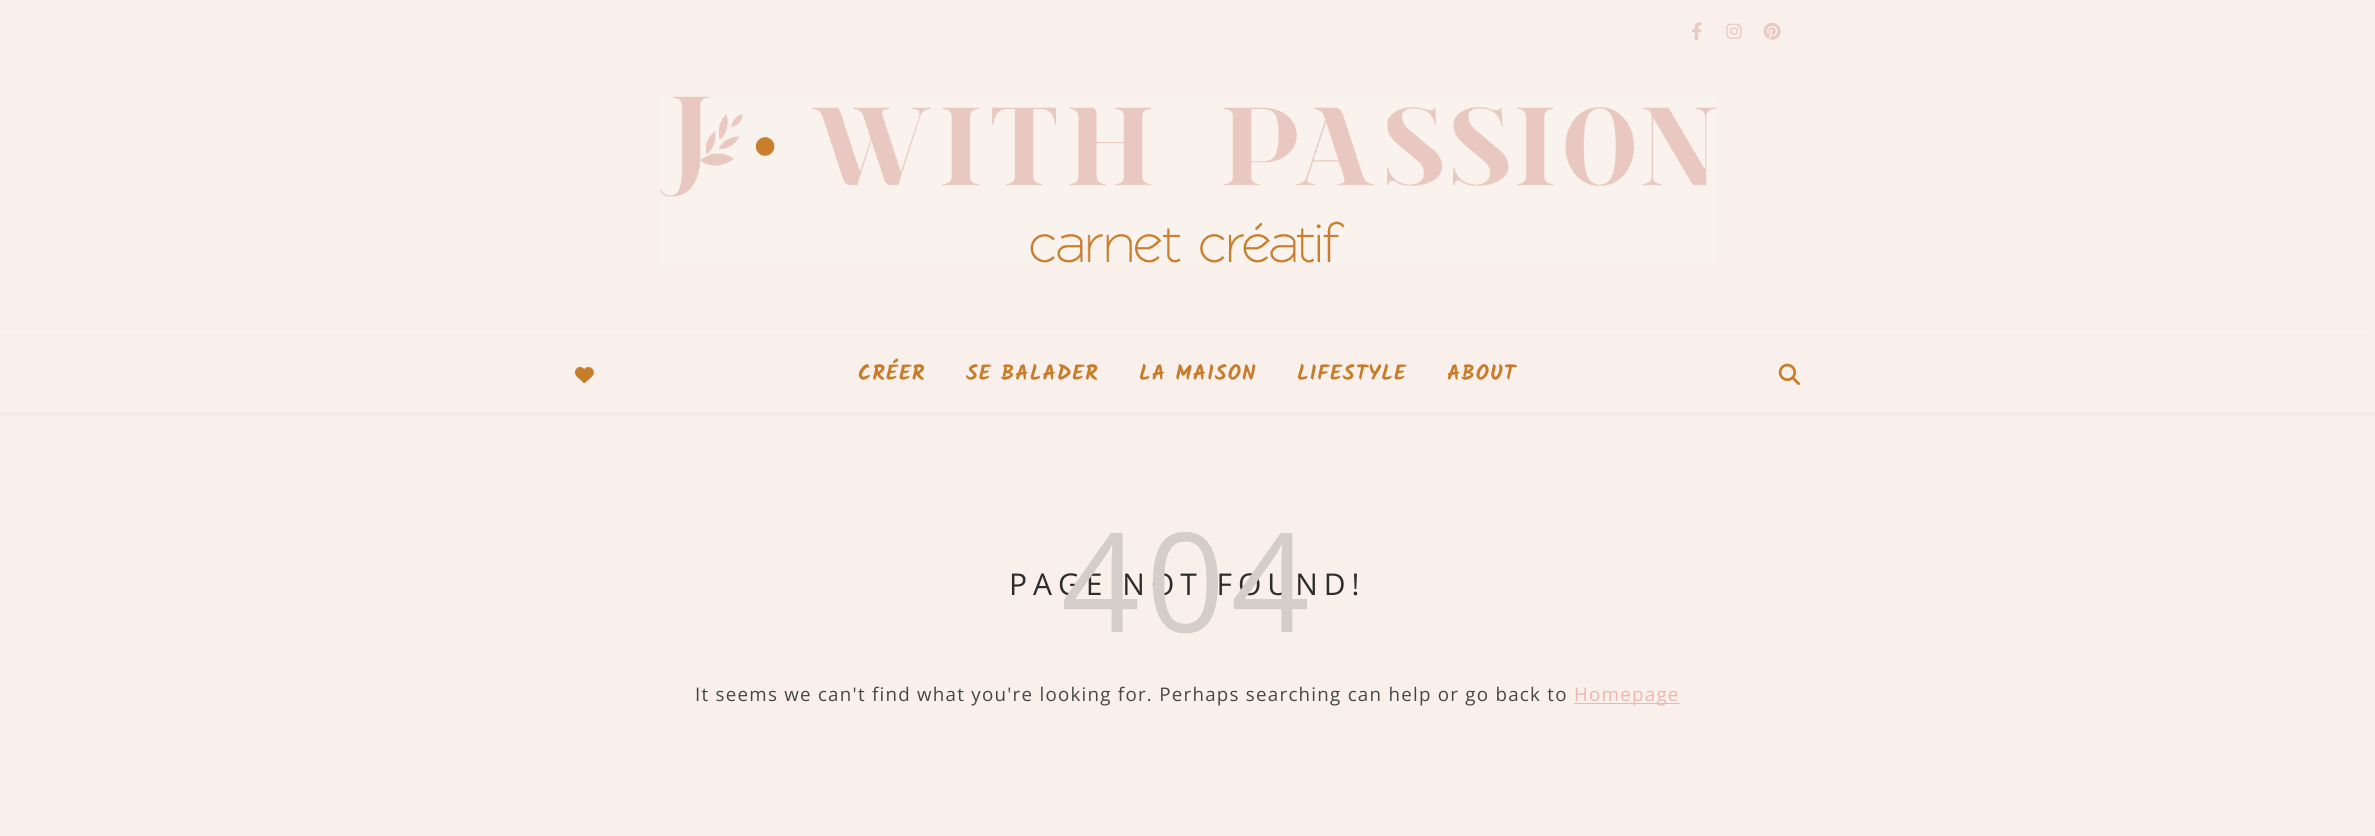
import math
import cairocffi as cairo

surface = cairo.ImageSurface(cairo.FORMAT_RGB24, 2375, 836)
ctx = cairo.Context(surface)
options = cairo.FontOptions()
options.set_hint_metrics(cairo.HINT_METRICS_OFF)
options.set_hint_style(cairo.HINT_STYLE_NONE)
ctx.set_font_options(options)
ctx.set_miter_limit(4)


def rgb(r, g, b):
    ctx.set_source_rgb(r / 255, g / 255, b / 255)


def face(family, size, italic, bold):
    ctx.select_font_face(family, cairo.FONT_SLANT_ITALIC if italic else cairo.FONT_SLANT_NORMAL, cairo.FONT_WEIGHT_BOLD if bold else cairo.FONT_WEIGHT_NORMAL)
    ctx.set_font_size(size)


def tracked(x, y, s, letter, word):
    ctx.move_to(x, y)
    for ch in s:
        ctx.show_text(ch)
        ctx.rel_move_to(letter + word * (ch == ' '), 0)


def rect(x, y, w, h):
    ctx.rectangle(x, y, w, h)
    ctx.fill()


def rrect(x, y, w, h, r):
    ctx.new_sub_path()
    for i, (u, v) in enumerate([(x + w - r, y + h - r), (x + r, y + h - r), (x + r, y + r), (x + w - r, y + r)]):
        ctx.arc(u, v, r, i * math.pi / 2, (i + 1) * math.pi / 2)
    ctx.close_path()


def soft_shadow(x, y, w, h, r, blur, alpha):
    ctx.push_group_with_content(cairo.CONTENT_ALPHA)
    ctx.set_operator(cairo.OPERATOR_SOURCE)
    for i in range(15, -16, -2):
        e = blur * i / 6
        if min(w, h) + 2 * e > 0:
            ctx.set_source_rgba(0, 0, 0, alpha * math.erfc((i - 1) / 8.5) / 2)
            rrect(x - e, y - e, w + 2 * e, h + 2 * e, max(0, min(r + e + blur * .6, min(w, h) / 2 + e)))
            ctx.fill()
    ctx.mask(ctx.pop_group())


def image(path, x, y, w, h):
    ctx.save()
    ctx.set_source_surface(cairo.ImageSurface.create_from_png(path), x, y)
    ctx.rectangle(x, y, w, h)
    ctx.fill()
    ctx.restore()


rgb(249, 240, 235)
ctx.paint()
image('image0.png', 1692, 22, 10, 18)
image('image1.png', 1726, 23, 16, 16)
image('image2.png', 1763, 22, 18, 18)
image('image3.png', 660, 96, 1056, 167)
rgb(199, 124, 42)
soft_shadow(0, 339, 2375, 75, 0, 3, 0.1)
rgb(249, 240, 235)
rect(0, 338, 2375, 75)
image('image4.png', 575, 367, 19, 16)
face('Kalam', 21.25, 0, 1)
rgb(199, 124, 42)
tracked(858, 380, 'CRÉER', 1.1, 0)
tracked(966, 380, 'SE BALADER', 1.1, 0)
tracked(1139, 380, 'LA MAISON', 1.1, 0)
tracked(1297, 380, 'LIFESTYLE', 1.1, 0)
tracked(1447, 380, 'ABOUT', 1.1, 0)
image('image5.png', 1778, 363, 22, 22)
face('Open Sans', 30, 0, 0)
rgb(45, 45, 45)
tracked(1009, 595, 'PAGE NOT FOUND!', 6, 0)
face('Open Sans', 138, 0, 0)
rgb(213, 205, 201)
tracked(1061, 632, '404', 6, 0)
face('Open Sans', 18.75, 0, 0)
rgb(70, 70, 70)
tracked(695, 701, 'It seems we can\'t find what you\'re looking for. Perhaps searching can help or go back to', 1.25, 0)
rgb(237, 182, 175)
rect(1574, 703, 106, 1)
tracked(1574, 701, 'Homepage', 1.25, 0)
surface.write_to_png('render.png')
